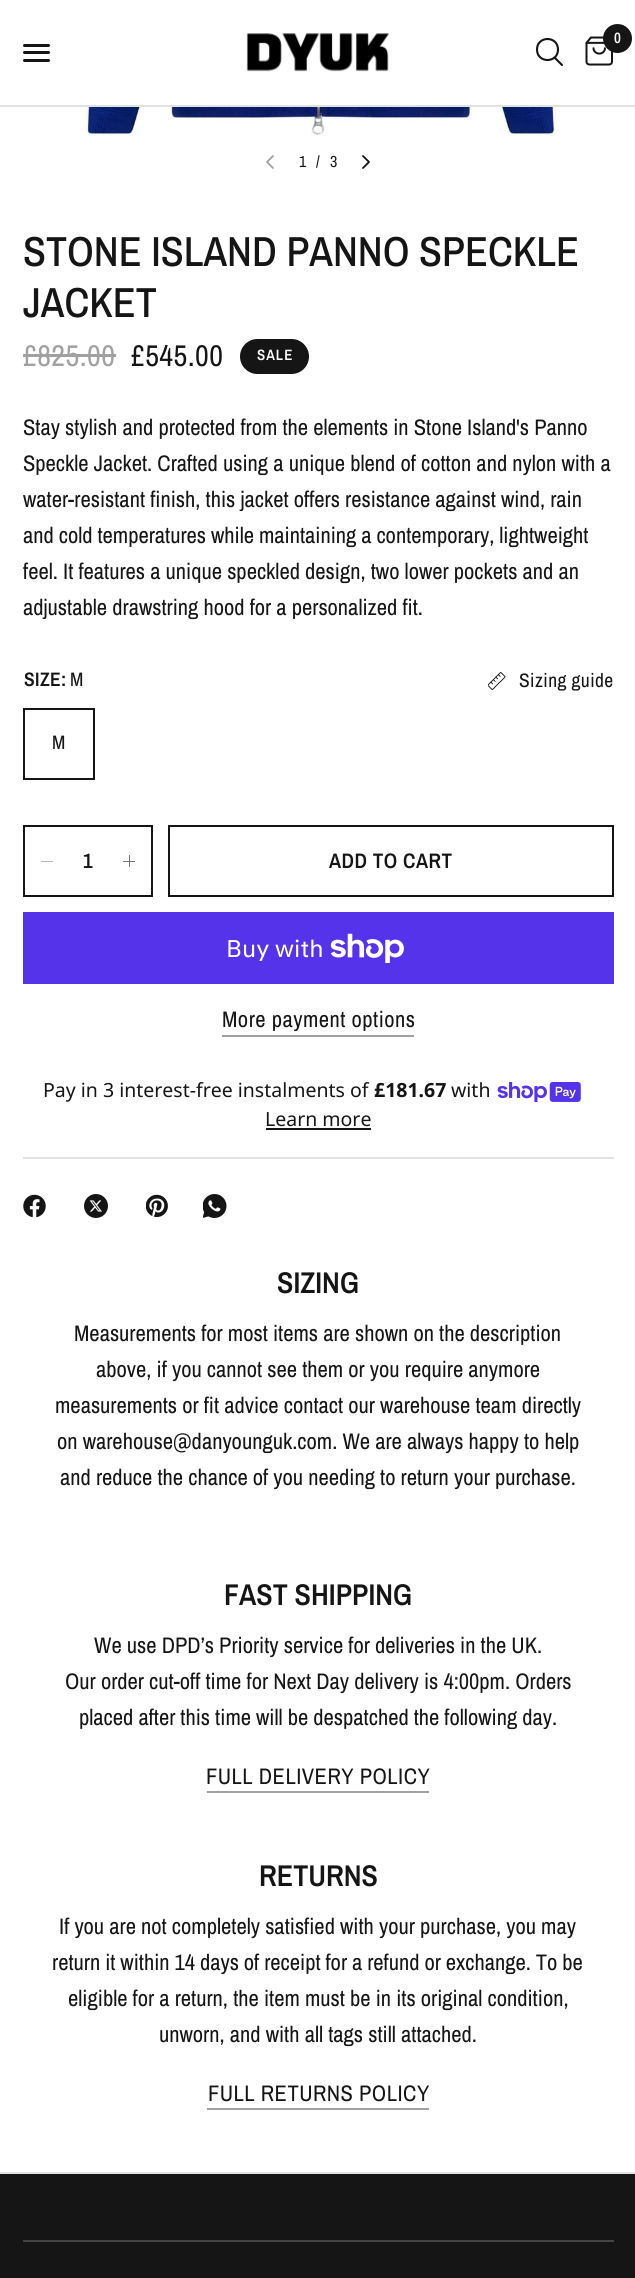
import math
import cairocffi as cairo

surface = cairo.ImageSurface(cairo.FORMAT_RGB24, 635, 2278)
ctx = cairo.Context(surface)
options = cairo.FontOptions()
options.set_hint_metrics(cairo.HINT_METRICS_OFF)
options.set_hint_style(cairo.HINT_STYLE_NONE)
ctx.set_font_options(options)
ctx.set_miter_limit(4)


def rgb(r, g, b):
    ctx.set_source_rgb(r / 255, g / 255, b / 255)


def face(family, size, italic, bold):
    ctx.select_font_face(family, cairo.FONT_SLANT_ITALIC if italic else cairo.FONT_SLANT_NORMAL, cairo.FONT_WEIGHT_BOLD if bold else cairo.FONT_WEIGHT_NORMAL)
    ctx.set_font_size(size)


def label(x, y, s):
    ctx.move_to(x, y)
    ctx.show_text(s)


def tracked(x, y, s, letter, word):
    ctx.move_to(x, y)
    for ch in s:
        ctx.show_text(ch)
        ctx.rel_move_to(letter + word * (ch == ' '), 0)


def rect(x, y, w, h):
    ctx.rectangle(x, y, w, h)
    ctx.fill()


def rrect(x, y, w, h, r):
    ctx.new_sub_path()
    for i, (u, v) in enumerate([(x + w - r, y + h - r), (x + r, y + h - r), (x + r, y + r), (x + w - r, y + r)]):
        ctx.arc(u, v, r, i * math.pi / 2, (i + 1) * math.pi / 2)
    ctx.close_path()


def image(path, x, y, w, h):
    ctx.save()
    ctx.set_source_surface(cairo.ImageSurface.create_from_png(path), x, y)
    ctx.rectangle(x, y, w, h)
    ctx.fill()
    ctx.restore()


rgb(255, 255, 255)
ctx.paint()
rgb(226, 226, 226)
rect(0, 105, 635, 2)
rgb(21, 21, 21)
rrect(23, 44, 27, 3, 1.5)
ctx.fill()
rrect(23, 51, 27, 3, 1.5)
ctx.fill()
rrect(23, 59, 27, 3, 1.5)
ctx.fill()
image('image0.png', 246, 33, 144, 39)
ctx.new_path()
ctx.move_to(555, 58)
ctx.line_to(562, 65)
ctx.move_to(558, 49.5)
ctx.curve_to(558, 63.5, 537, 63.5, 537, 49.5)
ctx.curve_to(537, 35.5, 558, 35.5, 558, 49.5)
ctx.close_path()
ctx.set_line_width(2.1)
ctx.set_line_cap(cairo.LINE_CAP_ROUND)
ctx.set_line_join(cairo.LINE_JOIN_ROUND)
ctx.stroke()
image('image1.png', 585, 36, 28, 30)
ctx.arc(617.5, 38.5, 14.5, 0, 2 * math.pi)
ctx.fill()
face('Archivo Narrow SemiBold', 15, 0, 0)
rgb(255, 255, 255)
label(614, 43, '0')
image('image2.png', 85, 107, 472, 29)
ctx.new_path()
ctx.move_to(273, 156)
ctx.line_to(267, 162)
ctx.line_to(273, 168)
rgb(161, 161, 161)
ctx.set_line_width(1.8)
ctx.stroke()
face('Archivo Narrow', 16, 0, 0)
rgb(21, 21, 21)
label(299, 167, '1')
label(316, 167, '/')
label(330, 167, '3')
ctx.new_path()
ctx.move_to(363, 156)
ctx.line_to(369, 162)
ctx.line_to(363, 168)
ctx.stroke()
face('Archivo Narrow Medium', 42, 0, 0)
label(23, 266, 'STONE ISLAND PANNO SPECKLE')
label(23, 317, 'JACKET')
face('Archivo Narrow', 30, 0, 0)
rgb(161, 161, 161)
tracked(23, 366, '£825.00', 0.5, 0)
rect(23, 354, 93, 3)
rgb(21, 21, 21)
tracked(131, 366, '£545.00', 0.5, 0)
rrect(240, 339, 69, 35, 17.5)
ctx.fill()
face('Archivo Narrow SemiBold', 15, 0, 0)
rgb(255, 255, 255)
tracked(257, 360, 'SALE', 1, 0)
face('Archivo Narrow', 22.5, 0, 0)
rgb(21, 21, 21)
label(23, 435, 'Stay stylish and protected from the elements in Stone Island\'s Panno')
label(23, 471, 'Speckle Jacket. Crafted using a unique blend of cotton and nylon with a')
label(23, 507, 'water-resistant finish, this jacket offers resistance against wind, rain')
tracked(23, 543, 'and cold temperatures while maintaining a contemporary, lightweight', 0, -0.25)
label(23, 579, 'feel. It features a unique speckled design, two lower pockets and an')
label(23, 615, 'adjustable drawstring hood for a personalized fit.')
face('Archivo Narrow SemiBold', 19.5, 0, 0)
tracked(24, 686, 'SIZE:', 0.4, 0)
face('Archivo Narrow', 19.5, 0, 0)
tracked(70, 686, 'M', 0.4, 0)
image('image3.png', 488, 672, 18, 18)
tracked(519, 687, 'Sizing guide', 0.4, 0)
ctx.rectangle(24, 709, 70, 70)
ctx.set_line_width(2)
ctx.set_line_cap(cairo.LINE_CAP_BUTT)
ctx.set_line_join(cairo.LINE_JOIN_MITER)
ctx.stroke()
tracked(52, 749, 'M', 0.4, 0)
ctx.rectangle(24, 826, 128, 70)
ctx.stroke()
rgb(185, 185, 185)
rect(41, 861, 12, 1)
face('Archivo Narrow SemiBold', 21, 0, 0)
rgb(21, 21, 21)
label(83, 868, '1')
rgb(115, 115, 115)
rect(129, 855, 1, 12)
rect(123, 861, 12, 1)
ctx.rectangle(169, 826, 444, 70)
rgb(21, 21, 21)
ctx.stroke()
tracked(329, 868, 'ADD TO CART', 0.5, 0)
rgb(84, 51, 235)
rect(23, 912, 591, 72)
face('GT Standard', 24, 0, 0)
rgb(255, 255, 255)
label(226, 957, 'Buy with')
image('image4.png', 330, 933, 74, 30)
face('Archivo Narrow', 22.5, 0, 0)
rgb(21, 21, 21)
tracked(222, 1027, 'More payment options', 0.5, 0)
rgb(161, 161, 161)
rect(222, 1035, 192, 2)
rgb(226, 226, 226)
rect(23, 1157, 591, 2)
face('Noto Sans', 19.5, 0, 0)
rgb(21, 21, 21)
label(43, 1097, 'Pay in 3 interest-free instalments of')
face('Noto Sans', 19.5, 0, 1)
label(374, 1097, '£181.67')
face('Noto Sans', 19.5, 0, 0)
label(451, 1097, 'with')
image('image5.png', 497, 1082, 84, 21)
label(265, 1126, 'Learn more')
rect(266, 1128, 105, 2)
image('image6.png', 23, 1194, 23, 24)
image('image7.png', 84, 1194, 24, 24)
image('image8.png', 146, 1194, 22, 23)
image('image9.png', 203, 1194, 24, 24)
face('Archivo Narrow SemiBold', 30, 0, 0)
label(277, 1293, 'SIZING')
face('Archivo Narrow', 22.5, 0, 0)
label(74, 1341, 'Measurements for most items are shown on the description')
label(96, 1377, 'above, if you cannot see them or you require anymore')
label(55, 1413, 'measurements or fit advice contact our warehouse team directly')
label(57, 1449, 'on warehouse@danyounguk.com. We are always happy to help')
label(60, 1485, 'and reduce the chance of you needing to return your purchase.')
face('Archivo Narrow SemiBold', 30, 0, 0)
label(224, 1605, 'FAST SHIPPING')
face('Archivo Narrow', 22.5, 0, 0)
label(94, 1653, 'We use DPD’s Priority service for deliveries in the UK.')
label(65, 1689, 'Our order cut-off time for Next Day delivery is 4:00pm. Orders')
tracked(79, 1725, 'placed after this time will be despatched the following day.', 0, -0.1)
tracked(206, 1784, 'FULL DELIVERY POLICY', 0.5, 0)
rgb(161, 161, 161)
rect(207, 1791, 222, 2)
face('Archivo Narrow SemiBold', 30, 0, 0)
rgb(21, 21, 21)
label(259, 1886, 'RETURNS')
face('Archivo Narrow', 22.5, 0, 0)
label(59, 1934, 'If you are not completely satisfied with your purchase, you may')
tracked(52, 1970, 'return it within 14 days of receipt for a refund or exchange. To be', 0, -0.2)
label(68, 2006, 'eligible for a return, the item must be in its original condition,')
label(159, 2042, 'unworn, and with all tags still attached.')
tracked(208, 2101, 'FULL RETURNS POLICY', 0.5, 0)
rgb(161, 161, 161)
rect(207, 2108, 222, 2)
rgb(226, 226, 226)
rect(0, 2172, 635, 2)
rgb(21, 21, 21)
rect(0, 2174, 635, 104)
rgb(68, 68, 68)
rect(23, 2240, 591, 2)
surface.write_to_png('render.png')
